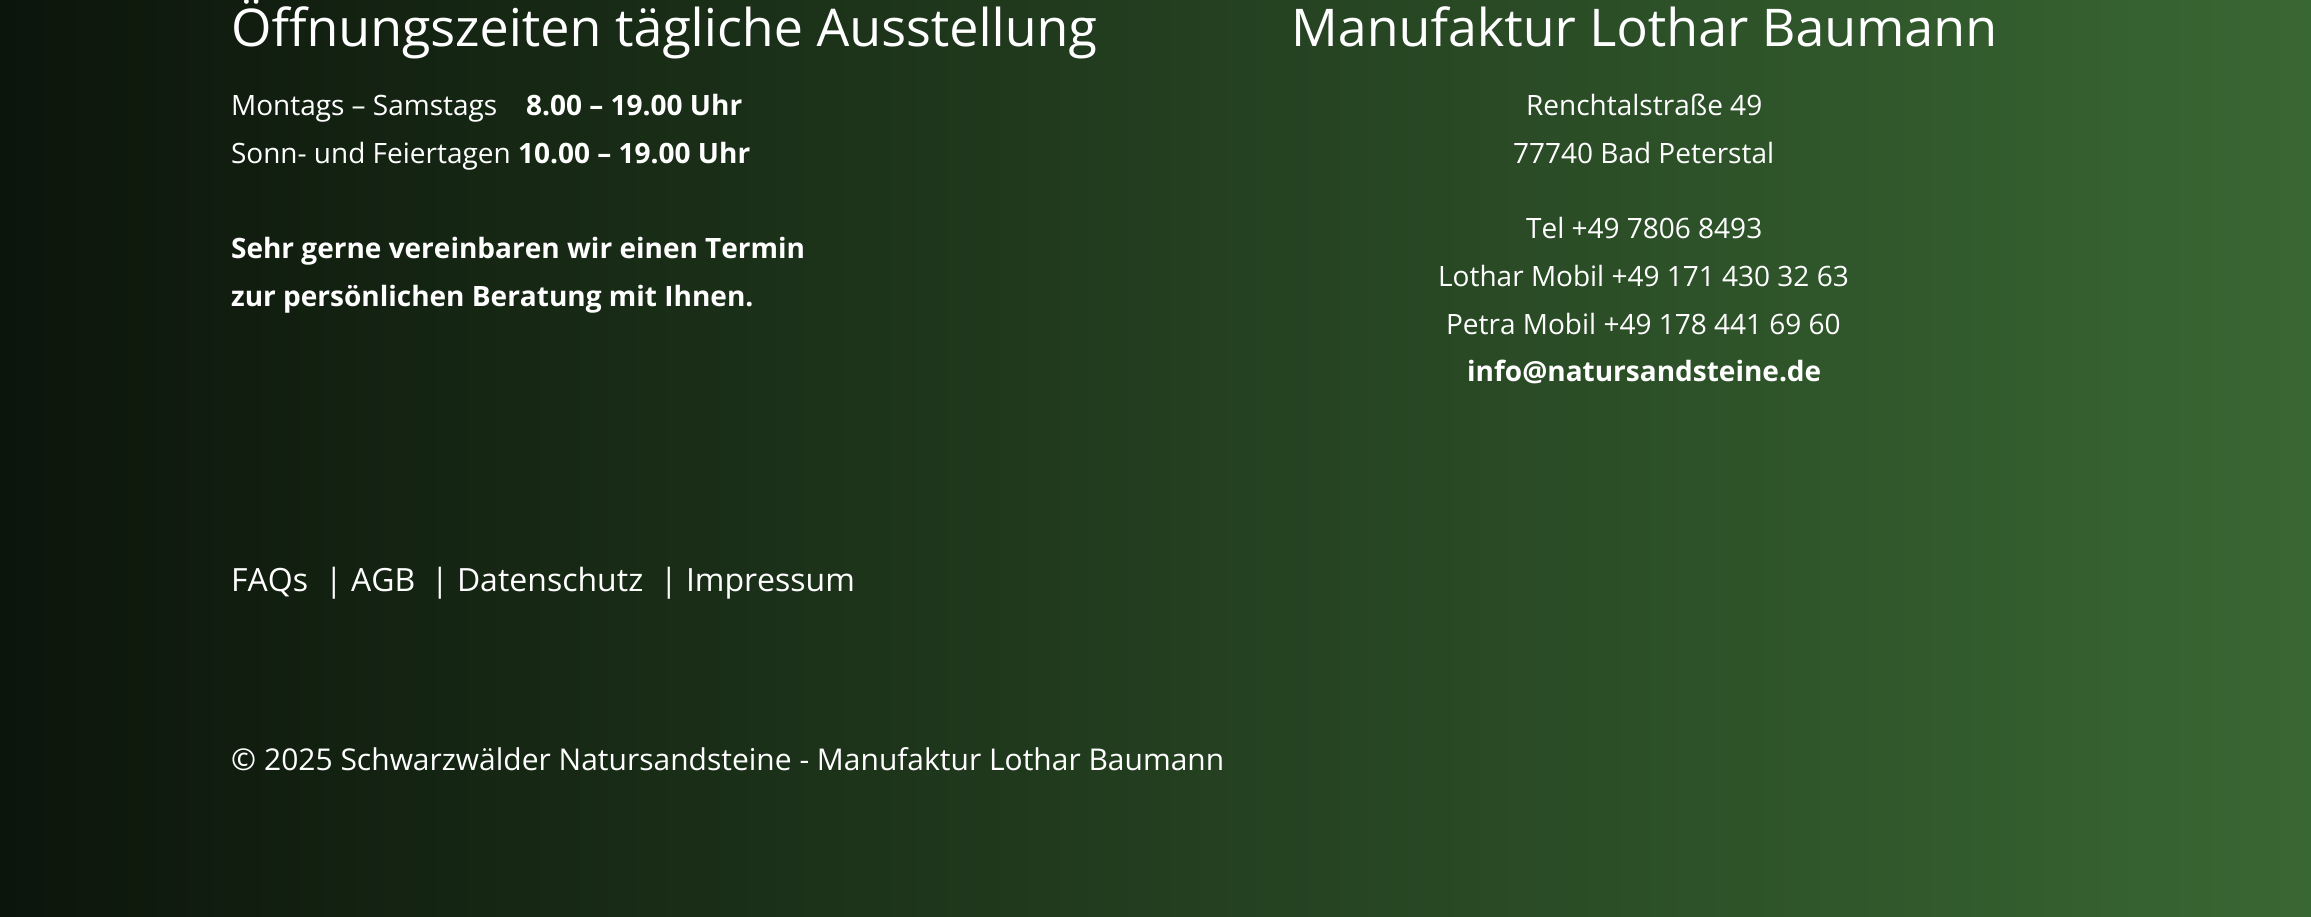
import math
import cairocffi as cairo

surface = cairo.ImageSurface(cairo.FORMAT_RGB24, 2311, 917)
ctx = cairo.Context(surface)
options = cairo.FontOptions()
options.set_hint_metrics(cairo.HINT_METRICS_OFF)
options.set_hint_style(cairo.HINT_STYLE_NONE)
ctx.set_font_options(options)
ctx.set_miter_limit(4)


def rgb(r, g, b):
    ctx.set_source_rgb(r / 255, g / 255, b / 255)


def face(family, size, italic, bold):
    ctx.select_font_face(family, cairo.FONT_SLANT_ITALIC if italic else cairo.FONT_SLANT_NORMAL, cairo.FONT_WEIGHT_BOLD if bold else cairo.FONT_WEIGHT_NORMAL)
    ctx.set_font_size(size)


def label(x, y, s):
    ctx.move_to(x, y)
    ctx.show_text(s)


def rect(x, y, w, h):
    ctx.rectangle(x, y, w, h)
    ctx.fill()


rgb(255, 255, 255)
ctx.paint()
gradient = cairo.LinearGradient(0, 328, 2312, 328)
gradient.add_color_stop_rgba(0, 0.047, 0.082, 0.043, 1)
gradient.add_color_stop_rgba(1, 0.224, 0.404, 0.2, 1)
ctx.set_source(gradient)
rect(0, 0, 2311, 917)
face('Open Sans', 52, 0, 0)
rgb(255, 255, 255)
label(231, 46, 'Öffnungszeiten tägliche Ausstellung')
face('Open Sans', 28, 0, 0)
label(231, 115, 'Montags – Samstags')
face('Open Sans', 28, 0, 1)
label(526, 115, '8.00 – 19.00 Uhr')
face('Open Sans', 28, 0, 0)
label(231, 163, 'Sonn- und Feiertagen')
face('Open Sans', 28, 0, 1)
label(518, 163, '10.00 – 19.00 Uhr')
label(231, 258, 'Sehr gerne vereinbaren wir einen Termin')
label(231, 306, 'zur persönlichen Beratung mit Ihnen.')
face('Open Sans', 52, 0, 0)
label(1291, 46, 'Manufaktur Lothar Baumann')
face('Open Sans', 28, 0, 0)
label(1526, 115, 'Renchtalstraße 49')
label(1513, 163, '77740 Bad Peterstal')
label(1526, 238, 'Tel +49 7806 8493')
label(1438, 286, 'Lothar Mobil +49 171 430 32 63')
label(1446, 334, 'Petra Mobil +49 178 441 69 60')
face('Open Sans', 28, 0, 1)
label(1467, 381, 'info@natursandsteine.de')
face('Open Sans', 32, 0, 0)
label(231, 591, 'FAQs')
label(325, 591, '| AGB')
label(431, 591, '| Datenschutz')
label(660, 591, '| Impressum')
face('Open Sans Medium', 30, 0, 0)
label(231, 770, '©')
face('Open Sans', 30, 0, 0)
label(264, 770, '2025 Schwarzwälder Natursandsteine - Manufaktur Lothar Baumann')
surface.write_to_png('render.png')
